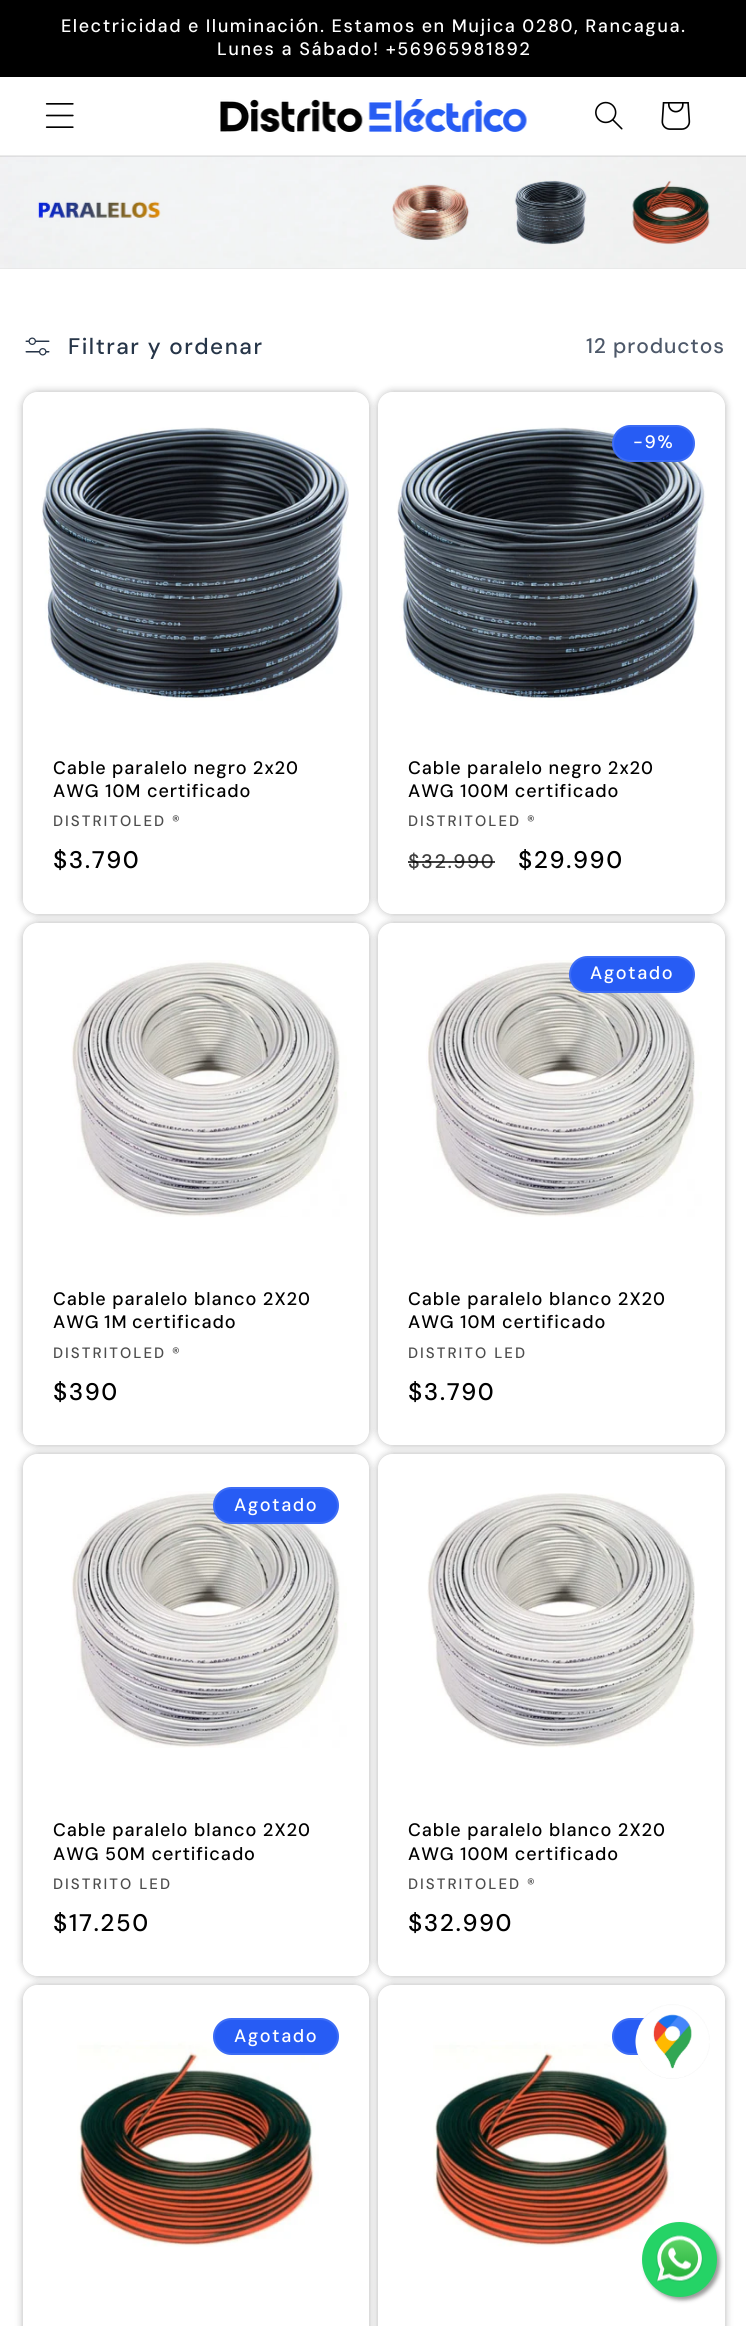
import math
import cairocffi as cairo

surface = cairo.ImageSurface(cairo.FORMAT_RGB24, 746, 2326)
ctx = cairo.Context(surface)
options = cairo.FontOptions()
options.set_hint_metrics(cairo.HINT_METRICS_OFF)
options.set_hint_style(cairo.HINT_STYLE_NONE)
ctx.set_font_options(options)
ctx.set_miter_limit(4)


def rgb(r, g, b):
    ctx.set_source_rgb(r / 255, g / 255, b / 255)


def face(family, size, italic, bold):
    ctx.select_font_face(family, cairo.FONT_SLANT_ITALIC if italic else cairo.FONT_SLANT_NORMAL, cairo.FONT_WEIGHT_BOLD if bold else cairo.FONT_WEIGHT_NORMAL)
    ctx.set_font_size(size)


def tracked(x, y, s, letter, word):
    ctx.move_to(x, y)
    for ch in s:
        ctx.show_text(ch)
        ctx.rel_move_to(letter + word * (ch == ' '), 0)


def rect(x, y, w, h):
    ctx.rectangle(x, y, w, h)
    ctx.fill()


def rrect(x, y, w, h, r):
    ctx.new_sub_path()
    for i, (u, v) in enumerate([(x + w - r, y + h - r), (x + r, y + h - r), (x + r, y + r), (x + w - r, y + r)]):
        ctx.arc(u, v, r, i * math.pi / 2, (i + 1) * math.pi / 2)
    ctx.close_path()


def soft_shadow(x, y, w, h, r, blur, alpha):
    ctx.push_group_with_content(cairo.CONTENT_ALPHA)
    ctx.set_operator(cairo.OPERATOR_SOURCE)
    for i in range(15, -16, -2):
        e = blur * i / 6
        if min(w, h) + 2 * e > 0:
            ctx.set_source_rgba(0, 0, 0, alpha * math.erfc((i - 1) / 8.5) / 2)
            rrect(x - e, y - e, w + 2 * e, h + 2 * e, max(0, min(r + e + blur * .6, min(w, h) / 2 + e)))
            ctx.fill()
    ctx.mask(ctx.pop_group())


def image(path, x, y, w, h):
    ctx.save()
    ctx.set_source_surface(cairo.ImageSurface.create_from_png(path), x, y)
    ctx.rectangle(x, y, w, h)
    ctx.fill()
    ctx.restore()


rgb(255, 255, 255)
ctx.paint()
rgb(0, 0, 0)
rect(0, 0, 746, 77)
face('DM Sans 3 Medium', 18, 0, 0)
rgb(255, 255, 255)
tracked(61, 32, 'Electricidad e Iluminación. Estamos en Mujica 0280, Rancagua.', 1.5, -0.25)
tracked(217, 55, 'Lunes a Sábado! +56965981892', 1.5, 0)
rgb(230, 230, 230)
rect(0, 268, 746, 1)
image('image4.png', 0, 156, 746, 113)
ctx.set_source_rgba(0, 0, 0, 0.08)
rect(0, 155, 746, 2)
image('image0.png', 45, 103, 29, 25)
image('image1.png', 220, 99, 307, 33)
image('image2.png', 595, 101, 28, 29)
image('image3.png', 661, 102, 30, 28)
image('image5.png', 25, 337, 25, 19)
face('DM Sans Medium', 22.5, 0, 0)
rgb(38, 53, 72)
tracked(68, 354, 'Filtrar y ordenar', 1.5, 0)
face('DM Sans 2 Medium', 21, 0, 0)
rgb(77, 88, 105)
tracked(586, 353, '12 productos', 0.9, 0)
ctx.save()
ctx.set_fill_rule(cairo.FILL_RULE_EVEN_ODD)
ctx.new_path()
ctx.move_to(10, 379)
ctx.line_to(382, 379)
ctx.line_to(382, 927)
ctx.line_to(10, 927)
ctx.close_path()
ctx.move_to(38, 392)
ctx.line_to(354, 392)
ctx.curve_to(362.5, 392, 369, 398.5, 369, 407)
ctx.line_to(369, 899)
ctx.curve_to(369, 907.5, 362.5, 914, 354, 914)
ctx.line_to(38, 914)
ctx.curve_to(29.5, 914, 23, 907.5, 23, 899)
ctx.line_to(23, 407)
ctx.curve_to(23, 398.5, 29.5, 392, 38, 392)
ctx.close_path()
ctx.clip()
rgb(0, 0, 0)
soft_shadow(23, 392, 346, 522, 15, 4, 0.3)
ctx.restore()
image('image6.png', 41, 427, 308, 274)
face('DM Sans 3 Medium', 18, 0, 0)
rgb(0, 0, 0)
tracked(53, 774, 'Cable paralelo negro 2x20', 0.9, -0.25)
tracked(53, 797, 'AWG 10M certificado', 0.9, 0)
face('DM Sans 3 Medium', 15, 0, 0)
rgb(77, 77, 77)
tracked(53, 826, 'DISTRITOLED ®', 2, 0)
face('DM Sans 3 Medium', 24, 0, 0)
rgb(0, 0, 0)
tracked(53, 868, '$3.790', 1.5, 0)
ctx.save()
ctx.set_fill_rule(cairo.FILL_RULE_EVEN_ODD)
ctx.new_path()
ctx.move_to(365, 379)
ctx.line_to(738, 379)
ctx.line_to(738, 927)
ctx.line_to(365, 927)
ctx.close_path()
ctx.move_to(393, 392)
ctx.line_to(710, 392)
ctx.curve_to(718.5, 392, 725, 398.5, 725, 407)
ctx.line_to(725, 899)
ctx.curve_to(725, 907.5, 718.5, 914, 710, 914)
ctx.line_to(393, 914)
ctx.curve_to(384.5, 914, 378, 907.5, 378, 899)
ctx.line_to(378, 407)
ctx.curve_to(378, 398.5, 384.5, 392, 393, 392)
ctx.close_path()
ctx.clip()
rgb(0, 0, 0)
soft_shadow(378, 392, 347, 522, 15, 4, 0.3)
ctx.restore()
image('image7.png', 396, 427, 310, 274)
rgb(39, 92, 244)
rrect(612, 425, 83, 37, 18.5)
ctx.fill()
rrect(613, 426, 81, 35, 17.5)
ctx.set_source_rgba(1, 1, 1, 0.1)
ctx.stroke()
face('DM Sans 3 Medium', 18, 0, 0)
rgb(255, 255, 255)
tracked(633, 448, '-9%', 1.5, 0)
rgb(0, 0, 0)
tracked(408, 774, 'Cable paralelo negro 2x20', 0.9, -0.25)
tracked(408, 797, 'AWG 100M certificado', 0.9, 0)
face('DM Sans 3 Medium', 15, 0, 0)
rgb(77, 77, 77)
tracked(408, 826, 'DISTRITOLED ®', 2, 0)
face('DM Sans 3 Medium', 19.5, 0, 0)
rgb(64, 64, 64)
tracked(408, 868, '$32.990', 1.5, 0)
ctx.set_source_rgba(0, 0, 0, 0.75)
rect(408, 861, 87, 2)
face('DM Sans 3 Medium', 24, 0, 0)
rgb(0, 0, 0)
tracked(518, 868, '$29.990', 1.5, 0)
ctx.save()
ctx.set_fill_rule(cairo.FILL_RULE_EVEN_ODD)
ctx.new_path()
ctx.move_to(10, 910)
ctx.line_to(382, 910)
ctx.line_to(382, 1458)
ctx.line_to(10, 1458)
ctx.close_path()
ctx.move_to(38, 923)
ctx.line_to(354, 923)
ctx.curve_to(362.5, 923, 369, 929.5, 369, 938)
ctx.line_to(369, 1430)
ctx.curve_to(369, 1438.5, 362.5, 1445, 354, 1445)
ctx.line_to(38, 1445)
ctx.curve_to(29.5, 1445, 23, 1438.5, 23, 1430)
ctx.line_to(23, 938)
ctx.curve_to(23, 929.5, 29.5, 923, 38, 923)
ctx.close_path()
ctx.clip()
rgb(0, 0, 0)
soft_shadow(23, 923, 346, 522, 15, 4, 0.3)
ctx.restore()
image('image8.png', 71, 960, 276, 257)
face('DM Sans 3 Medium', 18, 0, 0)
tracked(53, 1305, 'Cable paralelo blanco 2X20', 0.9, 0)
tracked(53, 1328, 'AWG 1M certificado', 0.9, -1)
face('DM Sans 3 Medium', 15, 0, 0)
rgb(77, 77, 77)
tracked(53, 1358, 'DISTRITOLED ®', 2, 0)
face('DM Sans 3 Medium', 24, 0, 0)
rgb(0, 0, 0)
tracked(53, 1400, '$390', 1.5, 0)
ctx.save()
ctx.set_fill_rule(cairo.FILL_RULE_EVEN_ODD)
ctx.new_path()
ctx.move_to(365, 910)
ctx.line_to(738, 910)
ctx.line_to(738, 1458)
ctx.line_to(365, 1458)
ctx.close_path()
ctx.move_to(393, 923)
ctx.line_to(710, 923)
ctx.curve_to(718.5, 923, 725, 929.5, 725, 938)
ctx.line_to(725, 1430)
ctx.curve_to(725, 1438.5, 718.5, 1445, 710, 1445)
ctx.line_to(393, 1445)
ctx.curve_to(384.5, 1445, 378, 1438.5, 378, 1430)
ctx.line_to(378, 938)
ctx.curve_to(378, 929.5, 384.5, 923, 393, 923)
ctx.close_path()
ctx.clip()
rgb(0, 0, 0)
soft_shadow(378, 923, 347, 522, 15, 4, 0.3)
ctx.restore()
image('image9.png', 426, 960, 276, 257)
rgb(39, 92, 244)
rrect(569, 956, 126, 37, 18.5)
ctx.fill()
rrect(570, 957, 124, 35, 17.5)
ctx.set_source_rgba(1, 1, 1, 0.1)
ctx.stroke()
face('DM Sans 3 Medium', 18, 0, 0)
rgb(255, 255, 255)
tracked(590, 979, 'Agotado', 1.5, 0)
rgb(0, 0, 0)
tracked(408, 1305, 'Cable paralelo blanco 2X20', 0.9, 0)
tracked(408, 1328, 'AWG 10M certificado', 0.9, 0)
face('DM Sans 3 Medium', 15, 0, 0)
rgb(77, 77, 77)
tracked(408, 1358, 'DISTRITO LED', 2, 0)
face('DM Sans 3 Medium', 24, 0, 0)
rgb(0, 0, 0)
tracked(408, 1400, '$3.790', 1.5, 0)
ctx.save()
ctx.set_fill_rule(cairo.FILL_RULE_EVEN_ODD)
ctx.new_path()
ctx.move_to(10, 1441)
ctx.line_to(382, 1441)
ctx.line_to(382, 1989)
ctx.line_to(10, 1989)
ctx.close_path()
ctx.move_to(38, 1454)
ctx.line_to(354, 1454)
ctx.curve_to(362.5, 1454, 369, 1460.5, 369, 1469)
ctx.line_to(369, 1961)
ctx.curve_to(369, 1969.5, 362.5, 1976, 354, 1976)
ctx.line_to(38, 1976)
ctx.curve_to(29.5, 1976, 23, 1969.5, 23, 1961)
ctx.line_to(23, 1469)
ctx.curve_to(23, 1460.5, 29.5, 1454, 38, 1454)
ctx.close_path()
ctx.clip()
rgb(0, 0, 0)
soft_shadow(23, 1454, 346, 522, 15, 4, 0.3)
ctx.restore()
image('image8.png', 71, 1491, 276, 257)
rgb(39, 92, 244)
rrect(213, 1487, 126, 37, 18.5)
ctx.fill()
rrect(214, 1488, 124, 35, 17.5)
ctx.set_source_rgba(1, 1, 1, 0.1)
ctx.stroke()
face('DM Sans 3 Medium', 18, 0, 0)
rgb(255, 255, 255)
tracked(234, 1511, 'Agotado', 1.5, 0)
rgb(0, 0, 0)
tracked(53, 1836, 'Cable paralelo blanco 2X20', 0.9, 0)
tracked(53, 1860, 'AWG 50M certificado', 0.9, 0)
face('DM Sans 3 Medium', 15, 0, 0)
rgb(77, 77, 77)
tracked(53, 1889, 'DISTRITO LED', 2, 0)
face('DM Sans 3 Medium', 24, 0, 0)
rgb(0, 0, 0)
tracked(53, 1931, '$17.250', 1.5, 0)
ctx.save()
ctx.set_fill_rule(cairo.FILL_RULE_EVEN_ODD)
ctx.new_path()
ctx.move_to(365, 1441)
ctx.line_to(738, 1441)
ctx.line_to(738, 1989)
ctx.line_to(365, 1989)
ctx.close_path()
ctx.move_to(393, 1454)
ctx.line_to(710, 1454)
ctx.curve_to(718.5, 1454, 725, 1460.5, 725, 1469)
ctx.line_to(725, 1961)
ctx.curve_to(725, 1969.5, 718.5, 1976, 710, 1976)
ctx.line_to(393, 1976)
ctx.curve_to(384.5, 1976, 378, 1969.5, 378, 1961)
ctx.line_to(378, 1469)
ctx.curve_to(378, 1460.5, 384.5, 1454, 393, 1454)
ctx.close_path()
ctx.clip()
rgb(0, 0, 0)
soft_shadow(378, 1454, 347, 522, 15, 4, 0.3)
ctx.restore()
image('image10.png', 427, 1493, 268, 255)
face('DM Sans 3 Medium', 18, 0, 0)
tracked(408, 1836, 'Cable paralelo blanco 2X20', 0.9, 0)
tracked(408, 1860, 'AWG', 0.9, 0)
tracked(460, 1860, '100M certificado', 0.9, 0)
face('DM Sans 3 Medium', 15, 0, 0)
rgb(77, 77, 77)
tracked(408, 1889, 'DISTRITOLED ®', 2, 0)
face('DM Sans 3 Medium', 24, 0, 0)
rgb(0, 0, 0)
tracked(408, 1931, '$32.990', 1.5, 0)
ctx.save()
ctx.set_fill_rule(cairo.FILL_RULE_EVEN_ODD)
ctx.new_path()
ctx.move_to(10, 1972)
ctx.line_to(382, 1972)
ctx.line_to(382, 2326)
ctx.line_to(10, 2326)
ctx.close_path()
ctx.move_to(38, 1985)
ctx.line_to(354, 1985)
ctx.curve_to(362.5, 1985, 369, 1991.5, 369, 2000)
ctx.line_to(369, 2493)
ctx.curve_to(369, 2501.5, 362.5, 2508, 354, 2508)
ctx.line_to(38, 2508)
ctx.curve_to(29.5, 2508, 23, 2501.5, 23, 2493)
ctx.line_to(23, 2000)
ctx.curve_to(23, 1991.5, 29.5, 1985, 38, 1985)
ctx.close_path()
ctx.clip()
rgb(0, 0, 0)
soft_shadow(23, 1985, 346, 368, 15, 4, 0.3)
ctx.restore()
image('image11.png', 77, 2040, 242, 207)
rgb(39, 92, 244)
rrect(213, 2018, 126, 37, 18.5)
ctx.fill()
rrect(214, 2019, 124, 35, 17.5)
ctx.set_source_rgba(1, 1, 1, 0.1)
ctx.stroke()
face('DM Sans 3 Medium', 18, 0, 0)
rgb(255, 255, 255)
tracked(234, 2042, 'Agotado', 1.5, 0)
ctx.save()
ctx.set_fill_rule(cairo.FILL_RULE_EVEN_ODD)
ctx.new_path()
ctx.move_to(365, 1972)
ctx.line_to(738, 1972)
ctx.line_to(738, 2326)
ctx.line_to(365, 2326)
ctx.close_path()
ctx.move_to(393, 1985)
ctx.line_to(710, 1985)
ctx.curve_to(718.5, 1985, 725, 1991.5, 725, 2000)
ctx.line_to(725, 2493)
ctx.curve_to(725, 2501.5, 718.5, 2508, 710, 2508)
ctx.line_to(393, 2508)
ctx.curve_to(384.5, 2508, 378, 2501.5, 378, 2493)
ctx.line_to(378, 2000)
ctx.curve_to(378, 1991.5, 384.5, 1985, 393, 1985)
ctx.close_path()
ctx.clip()
rgb(0, 0, 0)
soft_shadow(378, 1985, 347, 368, 15, 4, 0.3)
ctx.restore()
image('image12.png', 433, 2040, 241, 207)
rgb(39, 92, 244)
rrect(612, 2018, 83, 37, 18.5)
ctx.fill()
rrect(613, 2019, 81, 35, 17.5)
ctx.set_source_rgba(1, 1, 1, 0.1)
ctx.stroke()
image('image13.png', 635, 2004, 75, 75)
rgb(153, 153, 153)
soft_shadow(645, 2225, 75, 75, 37.5, 2, 1)
rgb(37, 211, 102)
ctx.arc(679.5, 2259.5, 37.5, 0, 2 * math.pi)
ctx.fill()
image('image14.png', 656, 2235, 47, 47)
surface.write_to_png('render.png')
